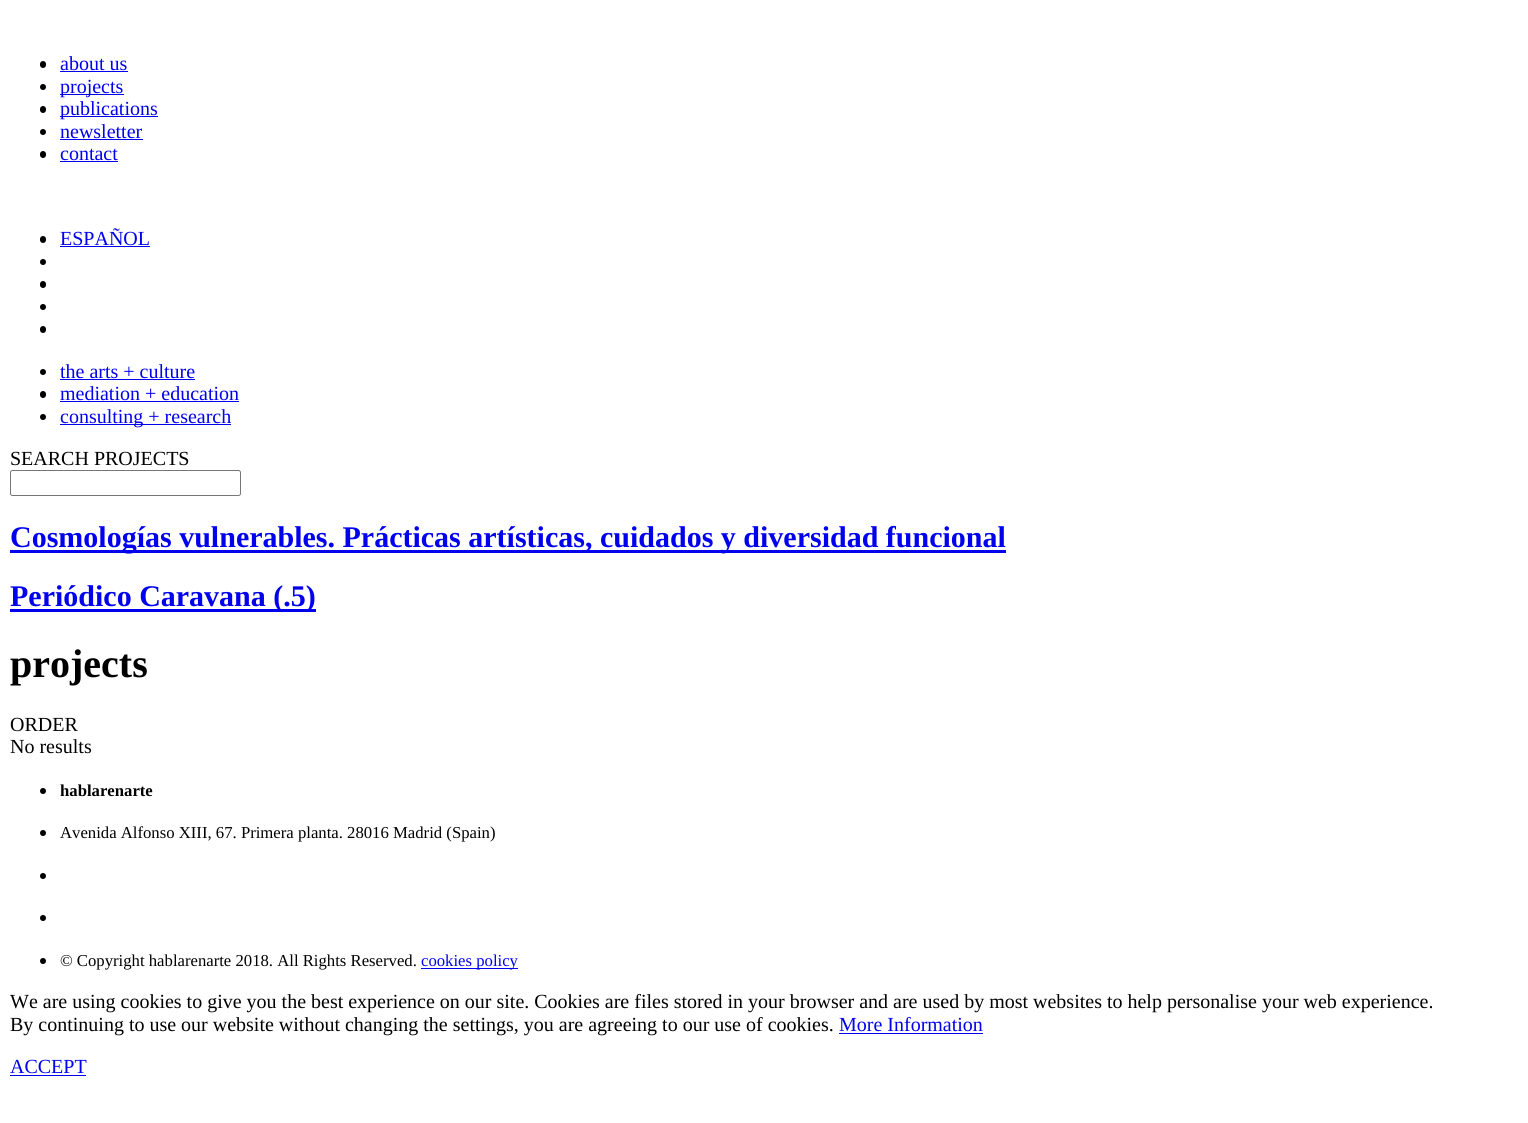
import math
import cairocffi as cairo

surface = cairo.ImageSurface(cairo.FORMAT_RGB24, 1528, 1123)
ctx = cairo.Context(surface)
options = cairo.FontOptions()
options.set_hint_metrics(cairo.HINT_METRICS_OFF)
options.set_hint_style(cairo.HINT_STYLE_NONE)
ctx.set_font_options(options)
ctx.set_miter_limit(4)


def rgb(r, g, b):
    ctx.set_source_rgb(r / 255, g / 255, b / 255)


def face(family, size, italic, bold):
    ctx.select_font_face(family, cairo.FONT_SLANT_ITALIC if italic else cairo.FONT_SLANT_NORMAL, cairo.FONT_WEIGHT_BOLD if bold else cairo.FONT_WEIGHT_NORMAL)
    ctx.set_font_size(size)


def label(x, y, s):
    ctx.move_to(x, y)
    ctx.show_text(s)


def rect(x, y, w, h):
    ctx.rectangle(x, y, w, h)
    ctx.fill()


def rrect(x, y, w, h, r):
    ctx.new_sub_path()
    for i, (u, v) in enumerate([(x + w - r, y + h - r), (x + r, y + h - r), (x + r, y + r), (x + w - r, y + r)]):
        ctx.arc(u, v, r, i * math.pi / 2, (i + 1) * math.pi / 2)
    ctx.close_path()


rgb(255, 255, 255)
ctx.paint()
rgb(0, 0, 0)
rrect(40, 61, 6, 7, 3)
ctx.fill()
face('Liberation Serif', 20, 0, 0)
rgb(0, 0, 238)
label(60, 70, 'about us')
rect(60, 71, 68, 1)
rgb(0, 0, 0)
ctx.new_path()
ctx.arc(43, 87, 3, 0, 2 * math.pi)
ctx.fill()
rgb(0, 0, 238)
rect(60, 94, 64, 1)
label(60, 93, 'projects')
rgb(0, 0, 0)
rrect(40, 106, 6, 7, 3)
ctx.fill()
rgb(0, 0, 238)
rect(60, 116, 98, 1)
label(60, 115, 'publications')
rgb(0, 0, 0)
ctx.new_path()
ctx.arc(43, 132, 3, 0, 2 * math.pi)
ctx.fill()
rgb(0, 0, 238)
label(60, 138, 'newsletter')
rect(60, 139, 83, 1)
rgb(0, 0, 0)
rrect(40, 151, 6, 7, 3)
ctx.fill()
rgb(0, 0, 238)
label(60, 160, 'contact')
rect(60, 161, 58, 1)
rgb(0, 0, 0)
rrect(40, 236, 6, 7, 3)
ctx.fill()
rgb(0, 0, 238)
label(60, 245, 'ESPAÑOL')
rect(60, 246, 90, 1)
rgb(0, 0, 0)
ctx.new_path()
ctx.arc(43, 262, 3, 0, 2 * math.pi)
ctx.fill()
rrect(40, 281, 6, 7, 3)
ctx.fill()
ctx.arc(43, 307, 3, 0, 2 * math.pi)
ctx.fill()
rrect(40, 326, 6, 7, 3)
ctx.fill()
ctx.arc(43, 372, 3, 0, 2 * math.pi)
ctx.fill()
rgb(0, 0, 238)
label(60, 378, 'the arts + culture')
rect(60, 379, 135, 1)
rgb(0, 0, 0)
rrect(40, 391, 6, 7, 3)
ctx.fill()
rgb(0, 0, 238)
label(60, 400, 'mediation + education')
rect(60, 401, 179, 1)
rgb(0, 0, 0)
ctx.new_path()
ctx.arc(43, 417, 3, 0, 2 * math.pi)
ctx.fill()
rgb(0, 0, 238)
rect(60, 424, 171, 1)
label(60, 423, 'consulting + research')
rgb(0, 0, 0)
label(10, 465, 'SEARCH PROJECTS')
rrect(10.5, 470.5, 230, 25, 2)
rgb(118, 118, 118)
ctx.set_line_width(1)
ctx.stroke()
rgb(0, 0, 238)
rect(10, 550, 996, 3)
face('Liberation Serif', 30, 0, 1)
label(10, 547, 'Cosmologías vulnerables. Prácticas artísticas, cuidados y diversidad funcional')
rect(10, 609, 306, 3)
label(10, 606, 'Periódico Caravana (.5)')
face('Liberation Serif', 40, 0, 1)
rgb(0, 0, 0)
label(10, 677, 'projects')
face('Liberation Serif', 20, 0, 0)
label(10, 731, 'ORDER')
label(10, 753, 'No results')
ctx.new_path()
ctx.arc(43, 791, 3, 0, 2 * math.pi)
ctx.fill()
face('Liberation Serif', 16.7, 0, 1)
label(60, 796, 'hablarenarte')
ctx.new_path()
ctx.arc(43, 833, 3, 0, 2 * math.pi)
ctx.fill()
face('Liberation Serif', 16.7, 0, 0)
label(60, 838, 'Avenida Alfonso XIII, 67. Primera planta. 28016 Madrid (Spain)')
ctx.new_path()
ctx.arc(43, 876, 3, 0, 2 * math.pi)
ctx.fill()
ctx.arc(43, 918, 3, 0, 2 * math.pi)
ctx.fill()
ctx.arc(43, 961, 3, 0, 2 * math.pi)
ctx.fill()
label(60, 966, '© Copyright hablarenarte 2018. All Rights Reserved.')
rgb(0, 0, 238)
rect(421, 968, 97, 1)
label(421, 966, 'cookies policy')
face('Liberation Serif', 20, 0, 0)
rgb(0, 0, 0)
label(10, 1008, 'We are using cookies to give you the best experience on our site. Cookies are files stored in your browser and are used by most websites to help personalise your web experience.')
label(10, 1031, 'By continuing to use our website without changing the settings, you are agreeing to our use of cookies.')
rgb(0, 0, 238)
label(839, 1031, 'More Information')
rect(839, 1033, 144, 1)
label(10, 1073, 'ACCEPT')
rect(10, 1075, 76, 1)
surface.write_to_png('render.png')
